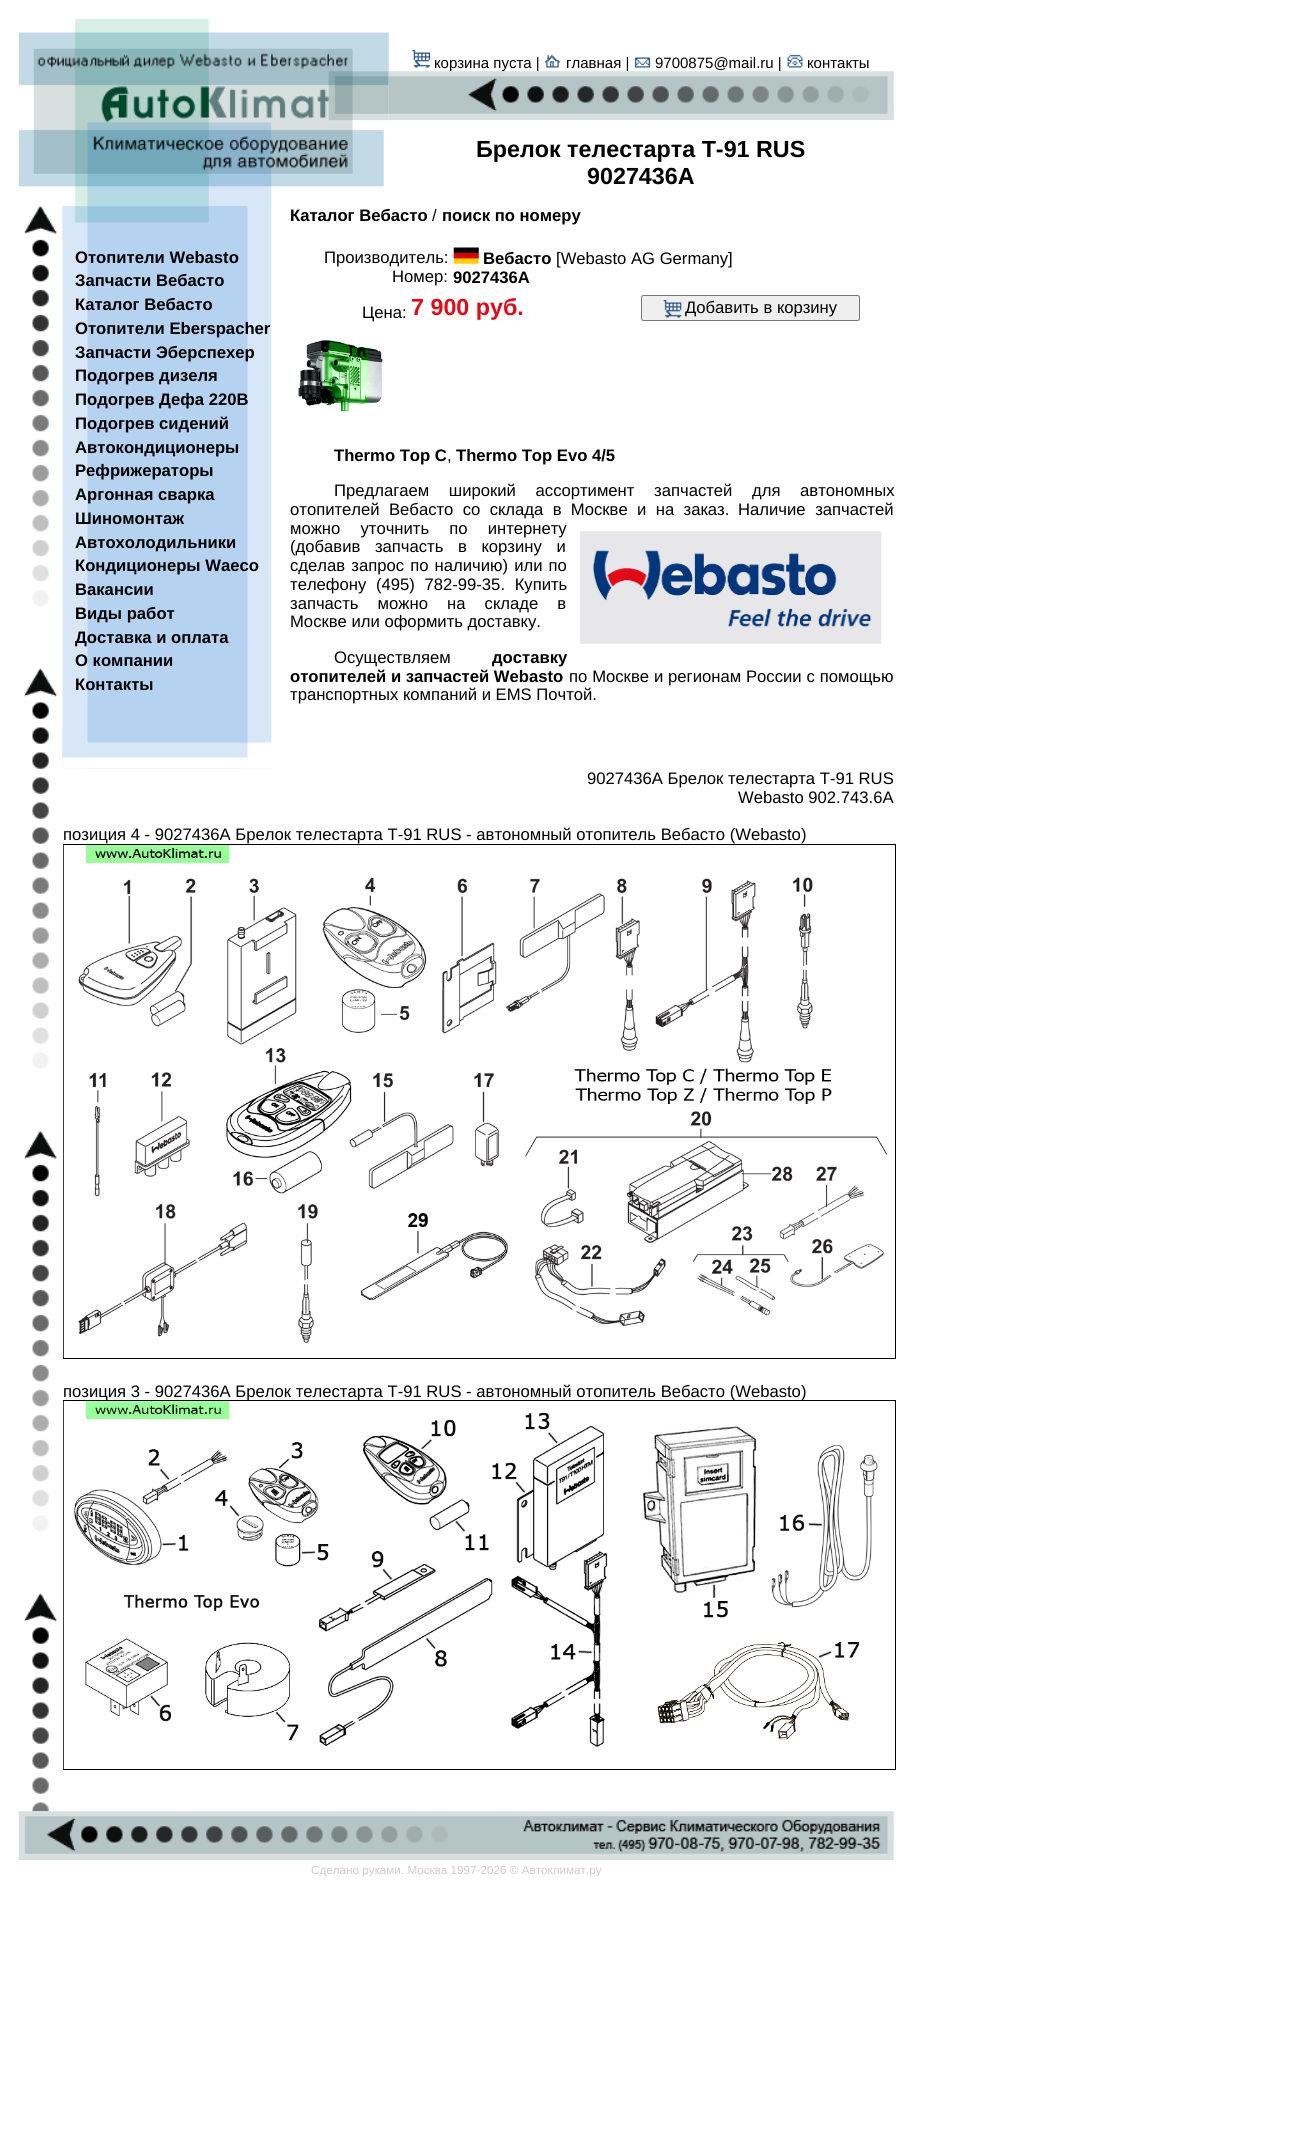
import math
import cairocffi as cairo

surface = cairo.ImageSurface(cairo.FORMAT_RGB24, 1301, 2151)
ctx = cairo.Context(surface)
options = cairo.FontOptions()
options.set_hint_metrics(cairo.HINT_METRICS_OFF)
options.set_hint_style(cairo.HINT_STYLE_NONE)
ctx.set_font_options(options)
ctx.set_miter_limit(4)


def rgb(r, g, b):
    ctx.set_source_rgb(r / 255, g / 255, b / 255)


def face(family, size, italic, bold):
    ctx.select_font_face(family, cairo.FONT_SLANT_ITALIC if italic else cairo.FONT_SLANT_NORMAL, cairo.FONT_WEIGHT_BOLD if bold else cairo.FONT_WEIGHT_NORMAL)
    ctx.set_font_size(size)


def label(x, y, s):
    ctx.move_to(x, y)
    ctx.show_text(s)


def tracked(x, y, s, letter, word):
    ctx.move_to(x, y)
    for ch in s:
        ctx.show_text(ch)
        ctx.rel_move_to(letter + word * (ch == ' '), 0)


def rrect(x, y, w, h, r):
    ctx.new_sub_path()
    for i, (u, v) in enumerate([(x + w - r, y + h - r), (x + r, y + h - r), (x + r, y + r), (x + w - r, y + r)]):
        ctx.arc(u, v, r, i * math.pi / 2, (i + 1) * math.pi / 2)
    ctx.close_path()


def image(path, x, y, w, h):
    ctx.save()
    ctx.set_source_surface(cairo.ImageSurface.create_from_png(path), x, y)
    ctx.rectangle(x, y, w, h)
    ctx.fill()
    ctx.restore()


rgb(255, 255, 255)
ctx.paint()
image('image0.png', 18, 18, 371, 189)
image('image1.png', 412, 50, 18, 18)
face('Liberation Sans', 15, 0, 0)
rgb(0, 0, 0)
label(434, 68, 'корзина пуста |')
image('image2.png', 544, 54, 17, 14)
label(566, 68, 'главная |')
image('image3.png', 634, 57, 17, 11)
label(655, 68, '9700875@mail.ru |')
image('image4.png', 787, 54, 16, 14)
label(807, 68, 'контакты')
image('image5.png', 388, 71, 506, 49)
face('Liberation Sans', 23.3, 0, 1)
label(476, 157, 'Брелок телестарта Т-91 RUS')
label(587, 184, '9027436A')
image('image6.png', 23, 206, 34, 1606)
image('image7.png', 62, 206, 210, 563)
image('image8.png', 62, 206, 209, 35)
face('Liberation Sans', 16.65, 0, 1)
label(75, 263, 'Отопители Webasto')
label(75, 286, 'Запчасти Вебасто')
label(75, 310, 'Каталог Вебасто')
label(75, 334, 'Отопители Eberspacher')
label(75, 358, 'Запчасти Эберспехер')
label(75, 381, 'Подогрев дизеля')
label(75, 405, 'Подогрев Дефа 220В')
label(75, 429, 'Подогрев сидений')
label(75, 453, 'Автокондиционеры')
label(75, 476, 'Рефрижераторы')
label(75, 500, 'Аргонная сварка')
label(75, 524, 'Шиномонтаж')
label(75, 548, 'Автохолодильники')
label(75, 571, 'Кондиционеры Waeco')
label(75, 595, 'Вакансии')
label(75, 619, 'Виды работ')
label(75, 643, 'Доставка и оплата')
label(75, 666, 'О компании')
label(75, 690, 'Контакты')
image('image9.png', 62, 724, 210, 45)
label(290, 221, 'Каталог Вебасто')
face('Liberation Sans', 16.65, 0, 0)
label(432, 221, '/')
face('Liberation Sans', 16.65, 0, 1)
label(442, 221, 'поиск по номеру')
face('Liberation Sans', 16.65, 0, 0)
label(324, 263, 'Производитель:')
label(392, 282, 'Номер:')
image('image10.png', 453, 247, 26, 17)
face('Liberation Sans', 16.65, 0, 1)
label(483, 264, 'Вебасто')
face('Liberation Sans', 16.65, 0, 0)
label(556, 264, '[Webasto AG Germany]')
face('Liberation Sans', 16.65, 0, 1)
label(453, 283, '9027436A')
face('Liberation Sans', 16.65, 0, 0)
label(362, 318, 'Цена:')
face('Liberation Sans', 23.3, 0, 1)
rgb(226, 10, 23)
label(411, 315, '7 900 руб.')
rgb(239, 239, 239)
rrect(641.5, 295.5, 218, 25, 2)
ctx.fill_preserve()
rgb(118, 118, 118)
ctx.set_line_width(1)
ctx.stroke()
image('image11.png', 663, 300, 19, 18)
face('Liberation Sans', 16.65, 0, 0)
rgb(0, 0, 0)
label(685, 313, 'Добавить в корзину')
image('image12.png', 298, 340, 85, 72)
face('Liberation Sans', 16.65, 0, 1)
label(334, 461, 'Thermo Top C')
face('Liberation Sans', 16.65, 0, 0)
label(447, 461, ',')
face('Liberation Sans', 16.65, 0, 1)
label(456, 461, 'Thermo Top Evo 4/5')
face('Liberation Sans', 16.65, 0, 0)
tracked(334, 496, 'Предлагаем широкий ассортимент запчастей для автономных', 0, 15)
tracked(290, 515, 'отопителей Вебасто со склада в Москве и на заказ.', 0, 4.75)
tracked(738, 515, 'Наличие запчастей', 0, 5)
tracked(290, 534, 'можно уточнить по интернету', 0, 15.5)
image('image13.png', 580, 531, 302, 113)
tracked(290, 552, '(добавив запчасть в корзину и', 0, 10)
tracked(290, 571, 'сделав запрос по наличию) или по', 0, 1.5)
tracked(290, 590, 'телефону (495) 782-99-35. Купить', 0, 5)
tracked(290, 609, 'запчасть можно на складе в', 0, 14.5)
label(290, 627, 'Москве или оформить доставку.')
label(334, 663, 'Осуществляем')
face('Liberation Sans', 16.65, 0, 1)
label(492, 663, 'доставку')
label(290, 682, 'отопителей и запчастей Webasto')
face('Liberation Sans', 16.65, 0, 0)
tracked(569, 682, 'по Москве и регионам России с помощью', 0, 0.25)
label(290, 700, 'транспортных компаний и EMS Почтой.')
label(587, 784, '9027436A Брелок телестарта Т-91 RUS')
label(738, 803, 'Webasto 902.743.6A')
label(63, 840, 'позиция 4 - 9027436A Брелок телестарта Т-91 RUS - автономный отопитель Вебасто (Webasto)')
ctx.rectangle(63.5, 844.5, 832, 514)
ctx.stroke()
image('image14.png', 63, 845, 825, 513)
label(63, 1397, 'позиция 3 - 9027436A Брелок телестарта Т-91 RUS - автономный отопитель Вебасто (Webasto)')
ctx.rectangle(63.5, 1400.5, 832, 369)
ctx.stroke()
image('image15.png', 63, 1401, 815, 368)
image('image16.png', 18, 1811, 876, 49)
face('Liberation Sans', 11.7, 0, 0)
rgb(204, 204, 204)
label(311, 1874, 'Сделано руками. Москва 1997-2026 © Автоклимат.ру')
surface.write_to_png('render.png')
